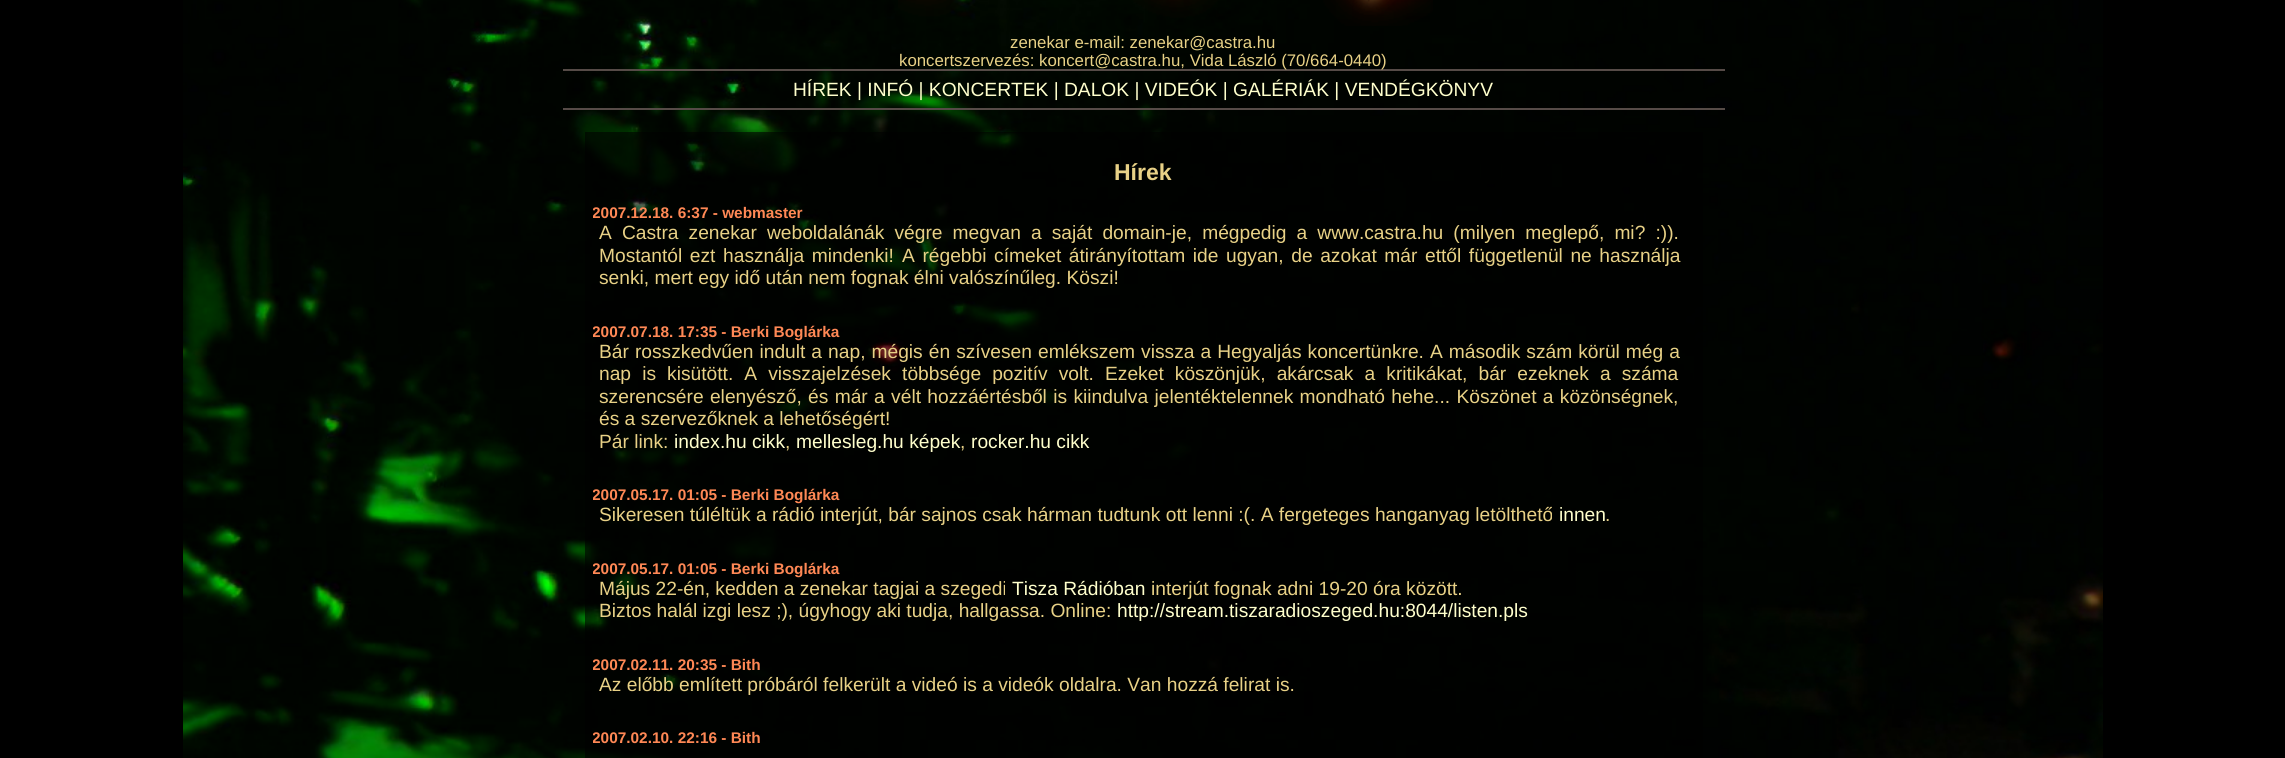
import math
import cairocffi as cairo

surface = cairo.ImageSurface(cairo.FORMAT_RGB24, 2285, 758)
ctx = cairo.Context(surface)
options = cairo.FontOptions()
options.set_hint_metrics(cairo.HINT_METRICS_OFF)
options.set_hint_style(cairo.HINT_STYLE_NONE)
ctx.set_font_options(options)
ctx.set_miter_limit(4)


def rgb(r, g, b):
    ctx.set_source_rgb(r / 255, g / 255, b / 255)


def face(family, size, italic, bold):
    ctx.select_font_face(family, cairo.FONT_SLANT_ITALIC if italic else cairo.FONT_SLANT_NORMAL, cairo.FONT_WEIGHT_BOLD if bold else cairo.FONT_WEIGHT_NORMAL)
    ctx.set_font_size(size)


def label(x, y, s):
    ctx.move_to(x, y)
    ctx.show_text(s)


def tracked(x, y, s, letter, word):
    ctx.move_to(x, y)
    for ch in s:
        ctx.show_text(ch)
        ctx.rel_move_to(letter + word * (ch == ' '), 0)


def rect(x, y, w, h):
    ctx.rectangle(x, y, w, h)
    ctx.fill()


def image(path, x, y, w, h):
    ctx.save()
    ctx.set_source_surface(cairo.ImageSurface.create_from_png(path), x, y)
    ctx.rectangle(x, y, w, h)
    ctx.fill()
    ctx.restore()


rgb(0, 0, 0)
ctx.paint()
image('image0.png', 183, 0, 1920, 758)
image('image1.png', 898, 0, 535, 26)
face('Liberation Sans', 16.8, 0, 0)
rgb(232, 209, 134)
label(1010, 48, 'zenekar e-mail: zenekar@castra.hu')
rgb(86, 75, 71)
rect(563, 69, 1162, 2)
rgb(232, 209, 134)
label(899, 66, 'koncertszervezés: koncert@castra.hu, Vida László (70/664-0440)')
rgb(86, 75, 71)
rect(563, 108, 1162, 2)
face('Liberation Sans', 19.2, 0, 0)
rgb(255, 255, 204)
label(793, 96, 'HÍREK | INFÓ | KONCERTEK | DALOK | VIDEÓK | GALÉRIÁK | VENDÉGKÖNYV')
ctx.set_source_rgba(0, 0, 0, 0.6)
rect(585, 132, 1118, 626)
face('Liberation Sans', 23, 0, 1)
rgb(232, 209, 134)
label(1114, 180, 'Hírek')
ctx.save()
ctx.rectangle(593, 140, 1102, 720)
ctx.clip()
face('Liberation Sans', 15.4, 0, 1)
rgb(255, 136, 85)
label(592, 218, '2007.12.18. 6:37 - webmaster')
ctx.restore()
face('Liberation Sans', 19.2, 0, 0)
tracked(599, 239, 'A Castra zenekar weboldalánák végre megvan a saját domain-je, mégpedig a www.castra.hu (milyen meglepő, mi? :)).', 0, 4.75)
tracked(599, 262, 'Mostantól ezt használja mindenki!', 0, 2.25)
tracked(902, 262, 'A régebbi címeket átirányítottam ide ugyan, de azokat már ettől függetlenül ne használja', 0, 2.25)
label(599, 284, 'senki, mert egy idő után nem fognak élni valószínűleg. Köszi!')
ctx.save()
ctx.rectangle(593, 140, 1102, 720)
ctx.clip()
face('Liberation Sans', 15.4, 0, 1)
rgb(255, 136, 85)
label(592, 337, '2007.07.18. 17:35 - Berki Boglárka')
ctx.restore()
tracked(599, 358, 'Bár rosszkedvűen indult a nap, mégis én szívesen emlékszem vissza a Hegyaljás koncertünkre. A második szám körül még a', 0, 0.7)
tracked(599, 380, 'nap is kisütött. A visszajelzések többsége pozitív volt. Ezeket köszönjük, akárcsak a kritikákat, bár ezeknek a száma', 0, 5.75)
tracked(599, 403, 'szerencsére elenyésző, és már a vélt hozzáértésből is kiindulva jelentéktelennek mondható hehe... Köszönet a közönségnek,', 0, 1)
label(599, 425, 'és a szervezőknek a lehetőségért!')
label(599, 448, 'Pár link:')
rgb(255, 255, 204)
label(674, 448, 'index.hu cikk')
rgb(232, 209, 134)
label(785, 448, ',')
rgb(255, 255, 204)
label(796, 448, 'mellesleg.hu képek')
rgb(232, 209, 134)
label(960, 448, ',')
rgb(255, 255, 204)
label(971, 448, 'rocker.hu cikk')
ctx.save()
ctx.rectangle(593, 140, 1102, 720)
ctx.clip()
face('Liberation Sans', 15.4, 0, 1)
rgb(255, 136, 85)
label(592, 500, '2007.05.17. 01:05 - Berki Boglárka')
ctx.restore()
rgb(232, 209, 134)
label(599, 521, 'Sikeresen túléltük a rádió interjút, bár sajnos csak hárman tudtunk ott lenni :(. A fergeteges hanganyag letölthető')
rgb(255, 255, 204)
label(1559, 521, 'innen')
rgb(232, 209, 134)
label(1605, 521, '.')
ctx.save()
ctx.rectangle(593, 140, 1102, 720)
ctx.clip()
face('Liberation Sans', 15.4, 0, 1)
rgb(255, 136, 85)
label(592, 574, '2007.05.17. 01:05 - Berki Boglárka')
ctx.restore()
label(599, 595, 'Május 22-én, kedden a zenekar tagjai a szegedi')
rgb(255, 255, 204)
label(1012, 595, 'Tisza Rádióban')
rgb(232, 209, 134)
label(1151, 595, 'interjút fognak adni 19-20 óra között.')
label(599, 617, 'Biztos halál izgi lesz ;), úgyhogy aki tudja, hallgassa. Online:')
rgb(255, 255, 204)
label(1117, 617, 'http://stream.tiszaradioszeged.hu:8044/listen.pls')
ctx.save()
ctx.rectangle(593, 140, 1102, 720)
ctx.clip()
face('Liberation Sans', 15.4, 0, 1)
rgb(255, 136, 85)
label(592, 670, '2007.02.11. 20:35 - Bith')
ctx.restore()
rgb(232, 209, 134)
label(599, 691, 'Az előbb említett próbáról felkerült a videó is a videók oldalra. Van hozzá felirat is.')
ctx.save()
ctx.rectangle(593, 140, 1102, 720)
ctx.clip()
face('Liberation Sans', 15.4, 0, 1)
rgb(255, 136, 85)
label(592, 743, '2007.02.10. 22:16 - Bith')
ctx.restore()
surface.write_to_png('render.png')
